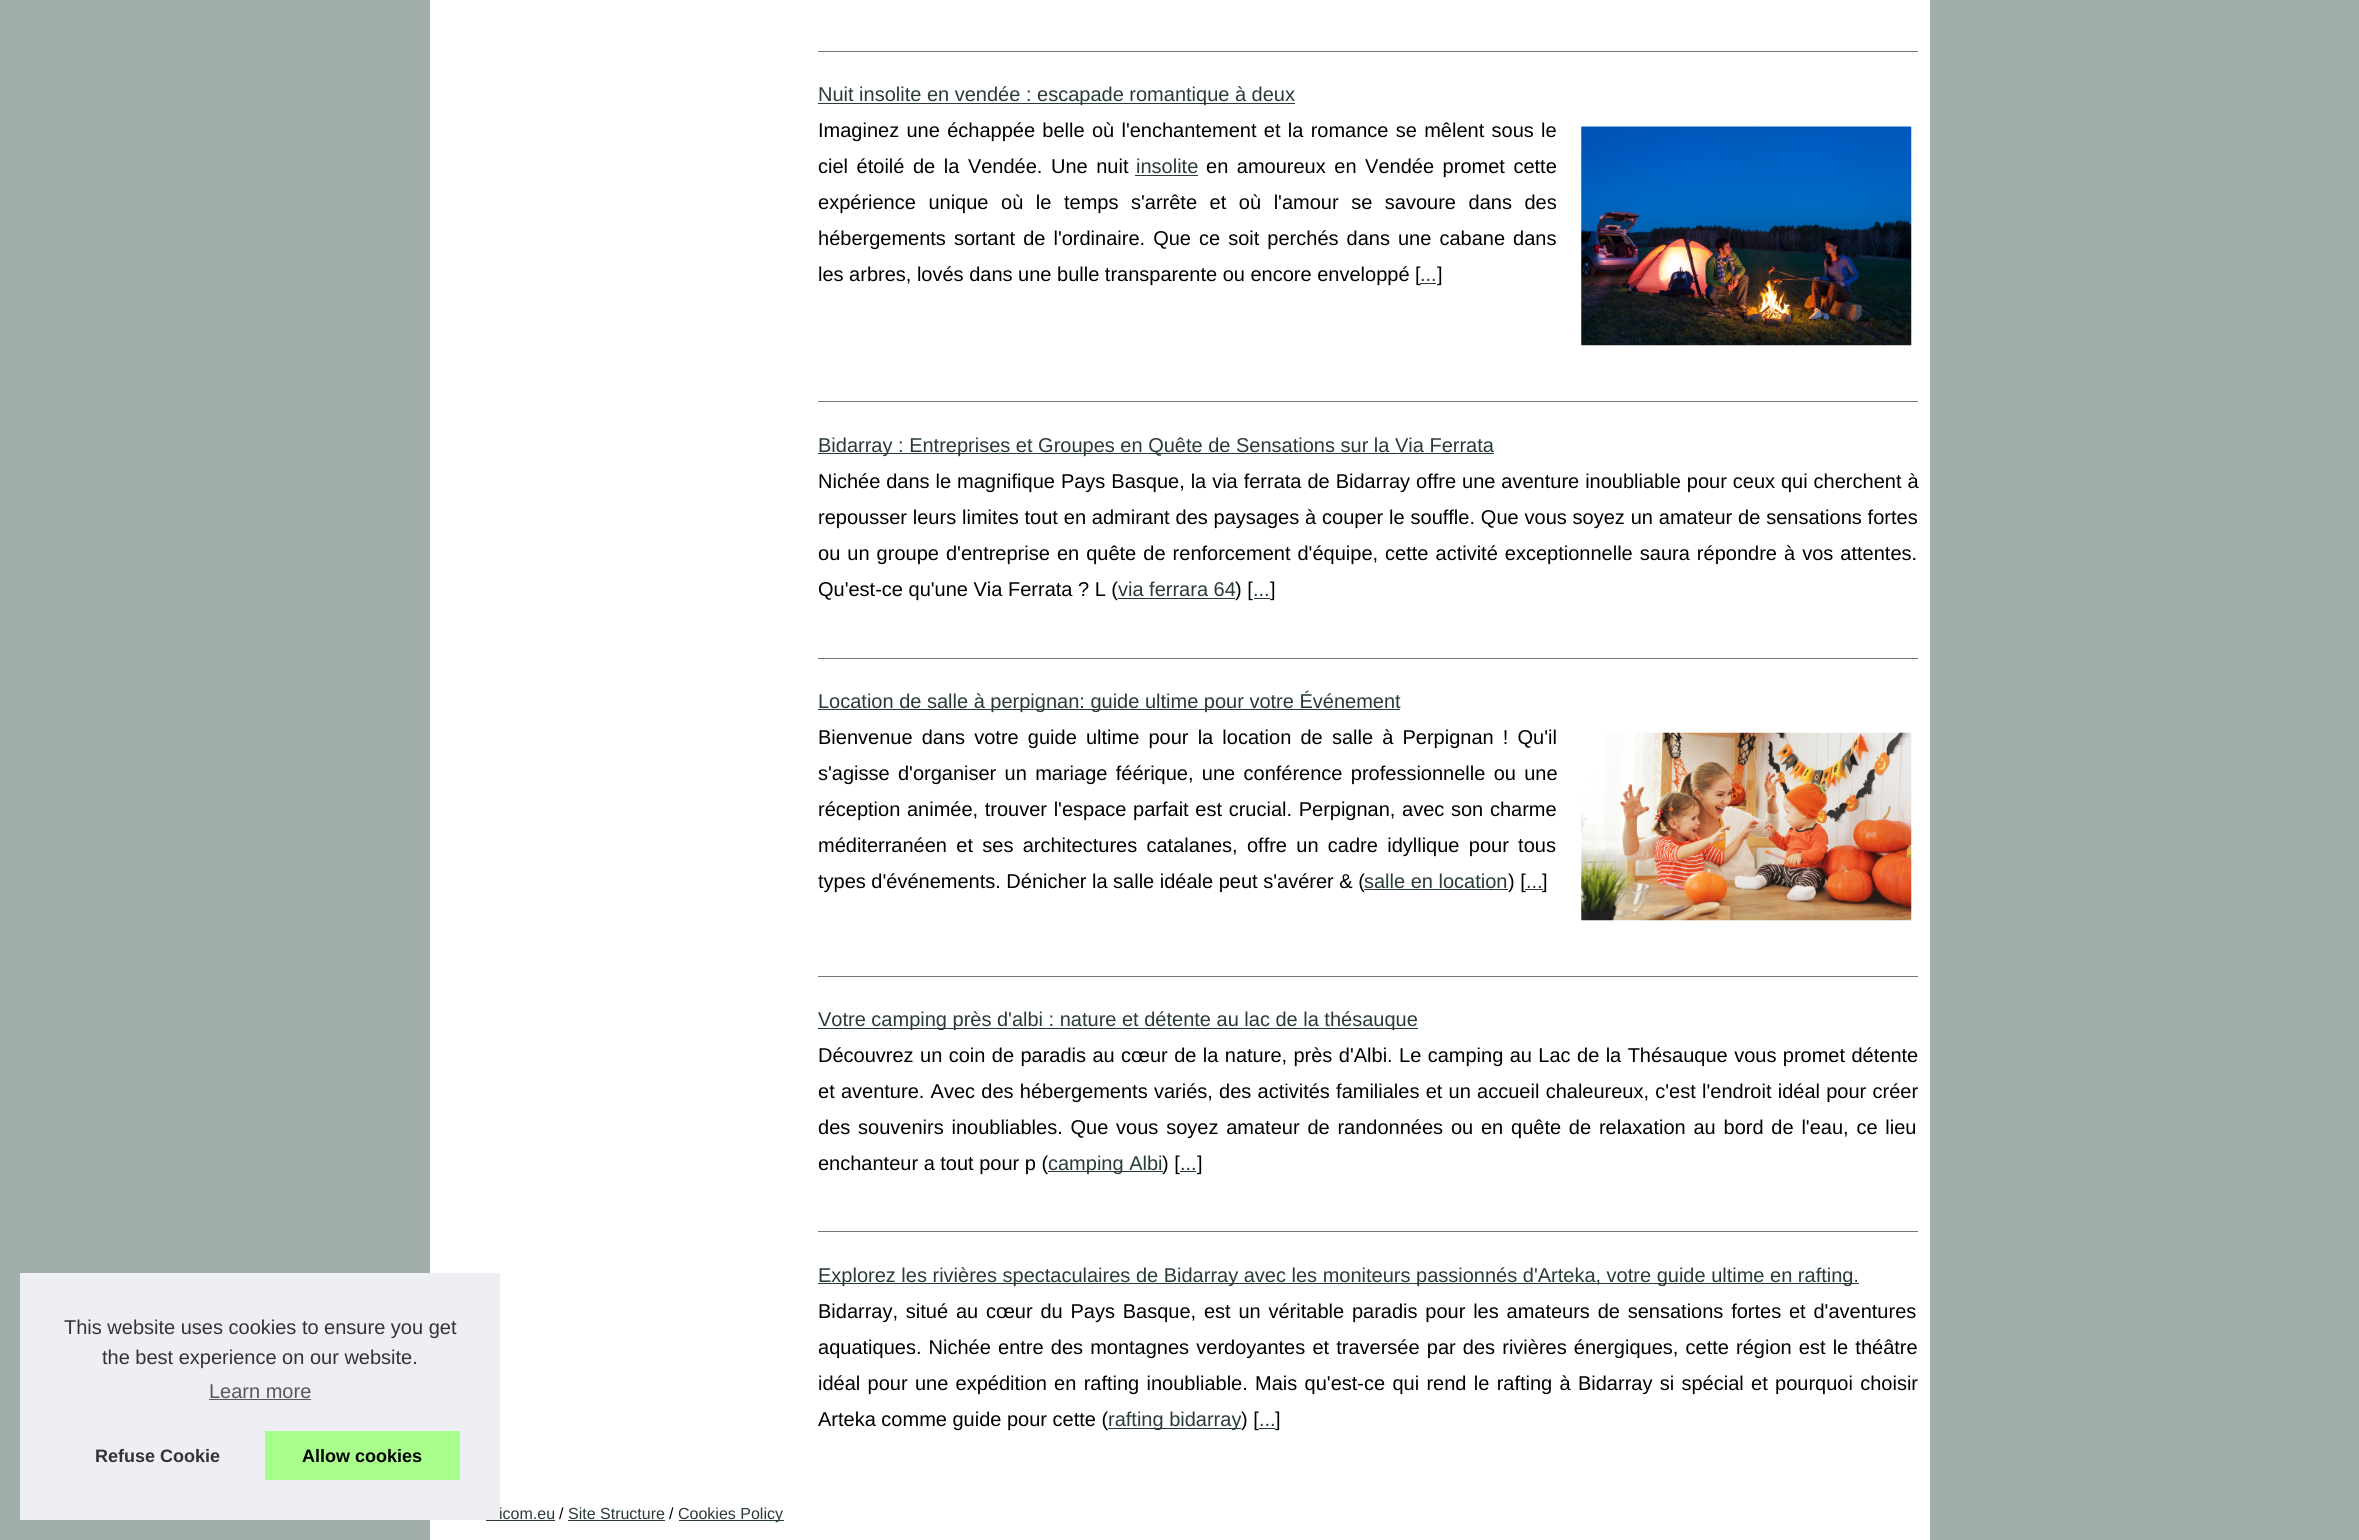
import math
import cairocffi as cairo

surface = cairo.ImageSurface(cairo.FORMAT_RGB24, 2359, 1540)
ctx = cairo.Context(surface)
options = cairo.FontOptions()
options.set_hint_metrics(cairo.HINT_METRICS_OFF)
options.set_hint_style(cairo.HINT_STYLE_NONE)
ctx.set_font_options(options)
ctx.set_miter_limit(4)


def rgb(r, g, b):
    ctx.set_source_rgb(r / 255, g / 255, b / 255)


def face(family, size, italic, bold):
    ctx.select_font_face(family, cairo.FONT_SLANT_ITALIC if italic else cairo.FONT_SLANT_NORMAL, cairo.FONT_WEIGHT_BOLD if bold else cairo.FONT_WEIGHT_NORMAL)
    ctx.set_font_size(size)


def label(x, y, s):
    ctx.move_to(x, y)
    ctx.show_text(s)


def tracked(x, y, s, letter, word):
    ctx.move_to(x, y)
    for ch in s:
        ctx.show_text(ch)
        ctx.rel_move_to(letter + word * (ch == ' '), 0)


def rect(x, y, w, h):
    ctx.rectangle(x, y, w, h)
    ctx.fill()


def image(path, x, y, w, h):
    ctx.save()
    ctx.set_source_surface(cairo.ImageSurface.create_from_png(path), x, y)
    ctx.rectangle(x, y, w, h)
    ctx.fill()
    ctx.restore()


rgb(160, 173, 170)
ctx.paint()
rgb(255, 255, 255)
rect(430, 0, 1500, 1540)
face('Liberation Sans', 16, 0, 0)
rgb(40, 59, 54)
label(499, 1519, 'icom.eu')
rgb(237, 239, 245)
rect(20, 1273, 480, 247)
face('Liberation Sans', 20, 0, 0)
rgb(51, 51, 51)
label(64, 1334, 'This website uses cookies to ensure you get')
label(102, 1364, 'the best experience on our website.')
rgb(88, 89, 90)
label(209, 1398, 'Learn more')
rect(209, 1399, 102, 1)
face('Liberation Sans', 18, 0, 1)
rgb(51, 51, 51)
label(95, 1462, 'Refuse Cookie')
rgb(168, 255, 140)
rect(265, 1431, 195, 49)
rgb(0, 0, 0)
label(302, 1462, 'Allow cookies')
rgb(117, 117, 117)
rect(818, 51, 1100, 1)
rgb(40, 59, 54)
rect(818, 103, 477, 1)
face('Liberation Sans', 20, 0, 0)
label(818, 101, 'Nuit insolite en vendée : escapade romantique à deux')
rgb(0, 0, 0)
tracked(818, 137, 'Imaginez une échappée belle où l\'enchantement et la romance se mêlent sous le', 0, 1.75)
tracked(818, 173, 'ciel étoilé de la Vendée. Une nuit', 0, 3)
rgb(40, 59, 54)
label(1136, 173, 'insolite')
rect(1135, 175, 63, 1)
rgb(0, 0, 0)
tracked(1206, 173, 'en amoureux en Vendée promet cette', 0, 3)
tracked(818, 209, 'expérience unique où le temps s\'arrête et où l\'amour se savoure dans des', 0, 7)
tracked(818, 245, 'hébergements sortant de l\'ordinaire. Que ce soit perchés dans une cabane dans', 0, 2.5)
label(818, 281, 'les arbres, lovés dans une bulle transparente ou encore enveloppé [')
rgb(40, 59, 54)
label(1420, 281, '...')
rect(1420, 283, 16, 1)
rgb(0, 0, 0)
label(1437, 281, ']')
image('image0.png', 1581, 126, 331, 220)
rgb(117, 117, 117)
rect(818, 401, 1100, 1)
rgb(40, 59, 54)
rect(818, 453, 676, 1)
label(818, 452, 'Bidarray : Entreprises et Groupes en Quête de Sensations sur la Via Ferrata')
rgb(0, 0, 0)
tracked(818, 488, 'Nichée dans le magnifique Pays Basque, la via ferrata de Bidarray offre une aventure inoubliable pour ceux qui cherchent à', 0, 0.4)
tracked(818, 524, 'repousser leurs limites tout en admirant des paysages à couper le souffle. Que vous soyez un amateur de sensations fortes', 0, 0.3)
tracked(818, 560, 'ou un groupe d\'entreprise en quête de renforcement d\'équipe, cette activité exceptionnelle saura répondre à vos attentes.', 0, 1.5)
label(818, 596, 'Qu\'est-ce qu\'une Via Ferrata ? L (')
rgb(40, 59, 54)
label(1118, 596, 'via ferrara 64')
rect(1118, 598, 117, 1)
rgb(0, 0, 0)
label(1235, 596, ') [')
rgb(40, 59, 54)
label(1253, 596, '...')
rect(1254, 598, 16, 1)
rgb(0, 0, 0)
label(1270, 596, ']')
rgb(117, 117, 117)
rect(818, 658, 1100, 1)
rgb(40, 59, 54)
rect(818, 709, 582, 1)
label(818, 708, 'Location de salle à perpignan: guide ultime pour votre Événement')
rgb(0, 0, 0)
tracked(818, 744, 'Bienvenue dans votre guide ultime pour la location de salle à Perpignan ! Qu\'il', 0, 3.6)
tracked(818, 780, 's\'agisse d\'organiser un mariage féérique, une conférence professionnelle ou une', 0, 2.75)
tracked(818, 816, 'réception animée, trouver l\'espace parfait est crucial. Perpignan, avec son charme', 0, 1.1)
tracked(818, 852, 'méditerranéen et ses architectures catalanes, offre un cadre idyllique pour tous', 0, 3.75)
label(818, 888, 'types d\'événements. Dénicher la salle idéale peut s\'avérer & (')
rgb(40, 59, 54)
label(1364, 888, 'salle en location')
rect(1364, 889, 144, 1)
rgb(0, 0, 0)
label(1508, 888, ') [')
rgb(40, 59, 54)
label(1526, 888, '...')
rect(1525, 889, 18, 1)
rgb(0, 0, 0)
label(1542, 888, ']')
image('image1.png', 1581, 732, 331, 189)
rgb(117, 117, 117)
rect(818, 976, 1100, 1)
rgb(40, 59, 54)
rect(818, 1028, 600, 1)
label(818, 1026, 'Votre camping près d\'albi : nature et détente au lac de la thésauque')
rgb(0, 0, 0)
tracked(818, 1062, 'Découvrez un coin de paradis au cœur de la nature, près d\'Albi. Le camping au Lac de la Thésauque vous promet détente', 0, 0.85)
tracked(818, 1098, 'et aventure. Avec des hébergements variés, des activités familiales et un accueil chaleureux, c\'est l\'endroit idéal pour créer', 0, 0.7)
tracked(818, 1134, 'des souvenirs inoubliables. Que vous soyez amateur de randonnées ou en quête de relaxation au bord de l\'eau, ce lieu', 0, 2.25)
label(818, 1170, 'enchanteur a tout pour p (')
rgb(40, 59, 54)
rect(1048, 1171, 115, 1)
label(1048, 1170, 'camping Albi')
rgb(0, 0, 0)
label(1162, 1170, ') [')
rgb(40, 59, 54)
label(1180, 1170, '...')
rect(1180, 1171, 16, 1)
rgb(0, 0, 0)
label(1197, 1170, ']')
rgb(117, 117, 117)
rect(818, 1231, 1100, 1)
rgb(40, 59, 54)
rect(818, 1283, 1041, 1)
label(818, 1282, 'Explorez les rivières spectaculaires de Bidarray avec les moniteurs passionnés d\'Arteka, votre guide ultime en rafting.')
rgb(0, 0, 0)
tracked(818, 1318, 'Bidarray, situé au cœur du Pays Basque, est un véritable paradis pour les amateurs de sensations fortes et d\'aventures', 0, 2.25)
tracked(818, 1354, 'aquatiques. Nichée entre des montagnes verdoyantes et traversée par des rivières énergiques, cette région est le théâtre', 0, 1.6)
tracked(818, 1390, 'idéal pour une expédition en rafting inoubliable. Mais qu\'est-ce qui rend le rafting à Bidarray si spécial et pourquoi choisir', 0, 1.75)
label(818, 1426, 'Arteka comme guide pour cette (')
rgb(40, 59, 54)
rect(1108, 1428, 133, 1)
label(1108, 1426, 'rafting bidarray')
rgb(0, 0, 0)
label(1241, 1426, ') [')
rgb(40, 59, 54)
label(1259, 1426, '...')
rect(1259, 1428, 16, 1)
rgb(0, 0, 0)
label(1275, 1426, ']')
rgb(40, 59, 54)
rect(486, 1520, 69, 1)
face('Liberation Sans', 16, 0, 0)
rgb(0, 0, 0)
label(559, 1519, '/')
rgb(40, 59, 54)
label(568, 1519, 'Site Structure')
rect(568, 1520, 97, 1)
rgb(0, 0, 0)
label(669, 1519, '/')
rgb(40, 59, 54)
rect(679, 1520, 105, 1)
label(678, 1519, 'Cookies Policy')
surface.write_to_png('render.png')
